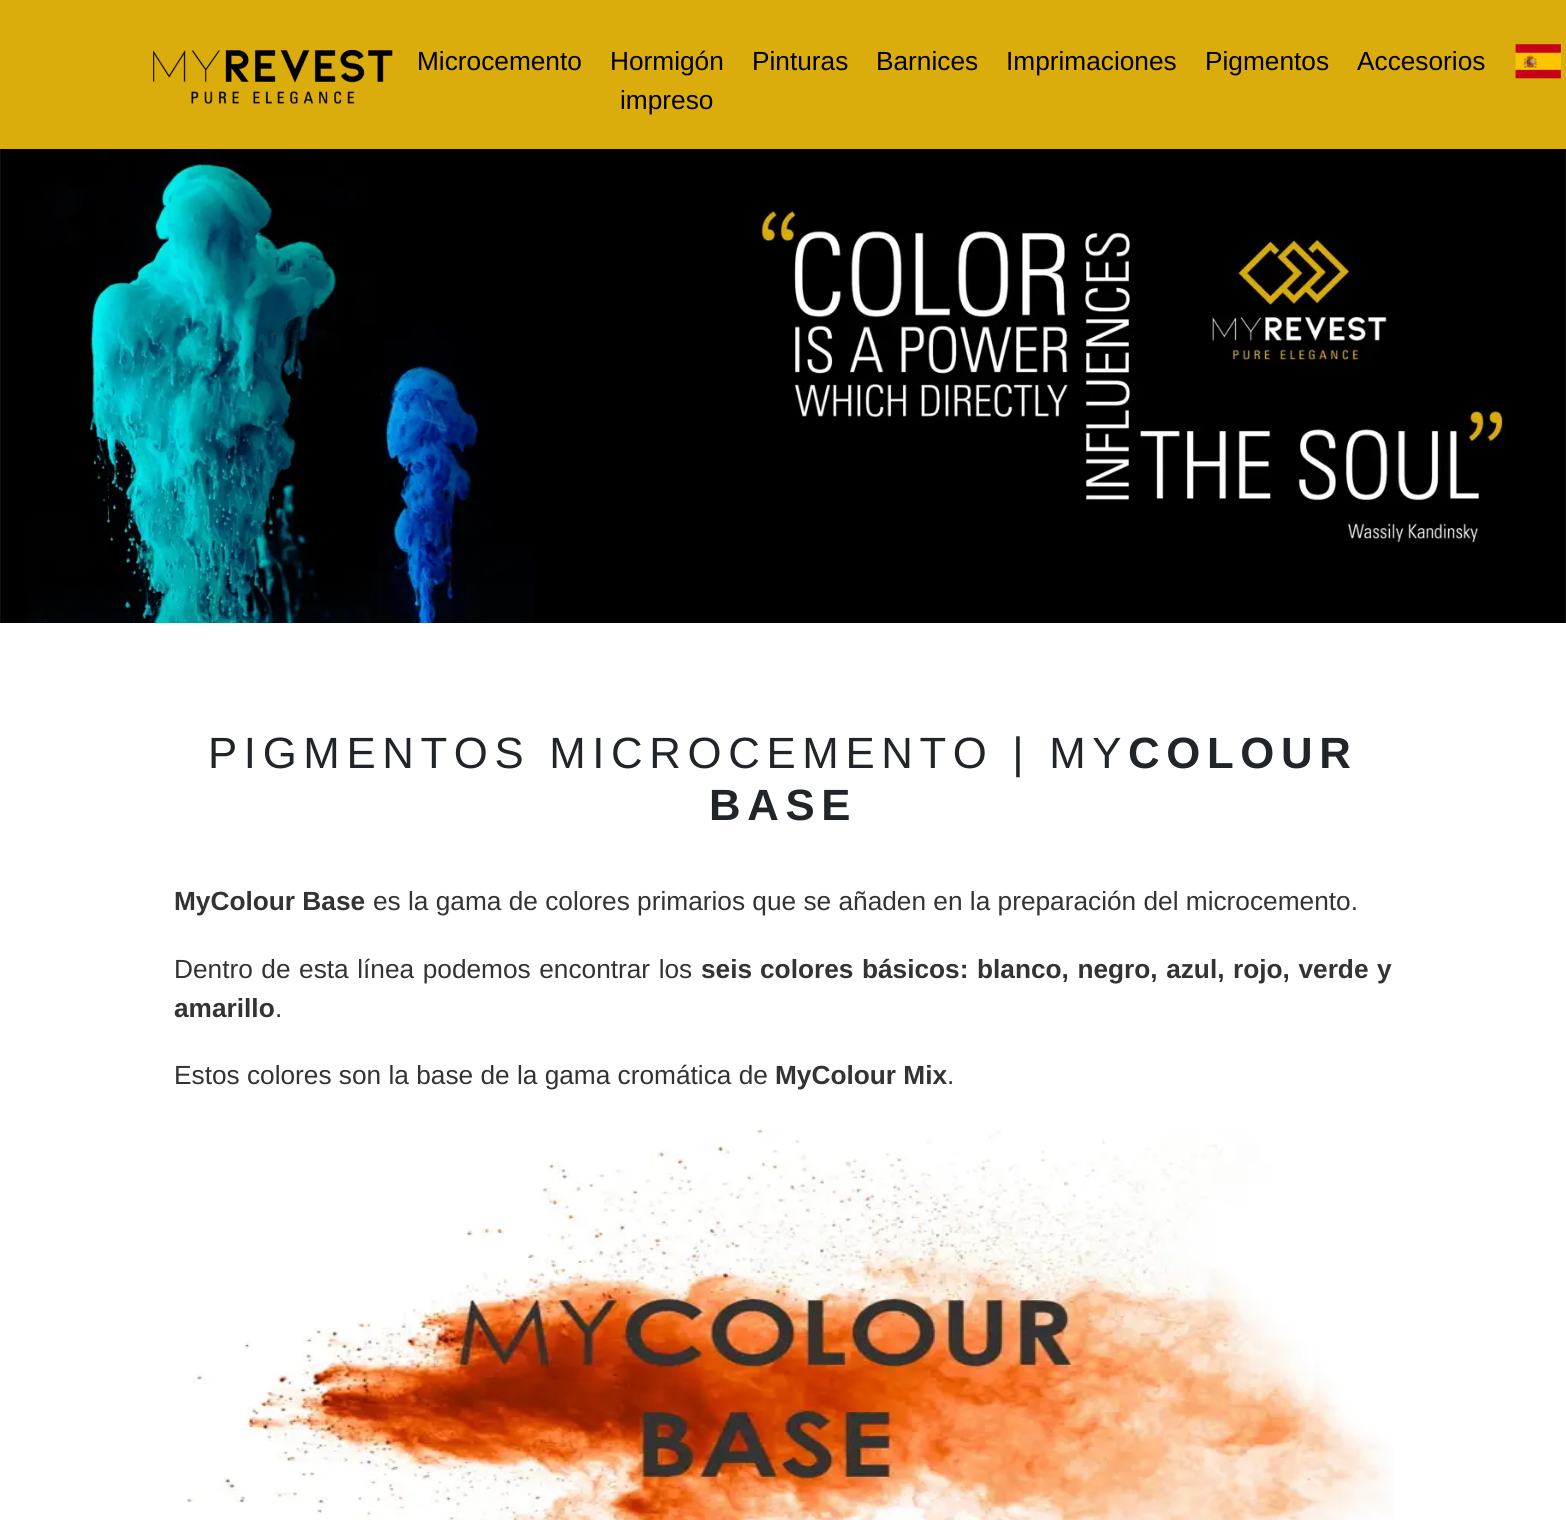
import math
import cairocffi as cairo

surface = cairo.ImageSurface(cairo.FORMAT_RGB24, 1566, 1520)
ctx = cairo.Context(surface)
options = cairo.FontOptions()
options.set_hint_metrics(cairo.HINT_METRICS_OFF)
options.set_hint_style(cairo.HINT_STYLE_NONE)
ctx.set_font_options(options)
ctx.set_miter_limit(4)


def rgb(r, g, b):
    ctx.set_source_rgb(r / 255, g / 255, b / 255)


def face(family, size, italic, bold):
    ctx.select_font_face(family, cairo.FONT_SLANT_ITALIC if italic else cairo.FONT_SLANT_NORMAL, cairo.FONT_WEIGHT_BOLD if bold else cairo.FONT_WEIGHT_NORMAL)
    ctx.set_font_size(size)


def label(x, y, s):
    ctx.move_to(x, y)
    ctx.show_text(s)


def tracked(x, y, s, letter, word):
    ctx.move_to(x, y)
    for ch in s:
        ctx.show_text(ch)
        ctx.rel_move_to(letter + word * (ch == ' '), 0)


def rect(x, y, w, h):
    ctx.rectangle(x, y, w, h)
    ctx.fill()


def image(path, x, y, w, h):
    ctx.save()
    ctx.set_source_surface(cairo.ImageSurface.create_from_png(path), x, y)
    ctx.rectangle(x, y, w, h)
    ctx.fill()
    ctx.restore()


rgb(255, 255, 255)
ctx.paint()
rgb(219, 173, 12)
rect(0, 0, 1566, 149)
image('image0.png', 153, 49, 240, 55)
face('Liberation Sans', 26.25, 0, 0)
rgb(0, 0, 0)
label(417, 70, 'Microcemento')
label(610, 70, 'Hormigón')
label(620, 109, 'impreso')
label(752, 70, 'Pinturas')
label(876, 70, 'Barnices')
label(1006, 70, 'Imprimaciones')
label(1205, 70, 'Pigmentos')
label(1357, 70, 'Accesorios')
image('image1.png', 1514, 44, 47, 35)
image('image2.png', 0, 149, 1566, 474)
face('Liberation Sans', 43.75, 0, 0)
rgb(33, 37, 41)
tracked(208, 768, 'PIGMENTOS MICROCEMENTO | MY', 6.65, 0)
face('Liberation Sans', 43.75, 0, 1)
tracked(1128, 768, 'COLOUR', 6.65, 0)
tracked(709, 820, 'BASE', 6.65, 0)
face('Liberation Sans', 26.25, 0, 1)
rgb(51, 51, 51)
label(174, 910, 'MyColour Base')
face('Liberation Sans', 26.25, 0, 0)
label(373, 910, 'es la gama de colores primarios que se añaden en la preparación del microcemento.')
tracked(174, 978, 'Dentro de esta línea podemos encontrar los', 0, 1.25)
face('Liberation Sans', 26.25, 0, 1)
label(701, 978, 'seis')
tracked(760, 978, 'colores básicos: blanco, negro, azul, rojo, verde y', 0, 1.25)
label(174, 1017, 'amarillo')
face('Liberation Sans', 26.25, 0, 0)
label(275, 1017, '.')
label(174, 1084, 'Estos colores son la base de la gama cromática de')
face('Liberation Sans', 26.25, 0, 1)
label(775, 1084, 'MyColour Mix')
face('Liberation Sans', 26.25, 0, 0)
label(947, 1084, '.')
image('image3.png', 187, 1127, 1206, 393)
surface.write_to_png('render.png')
